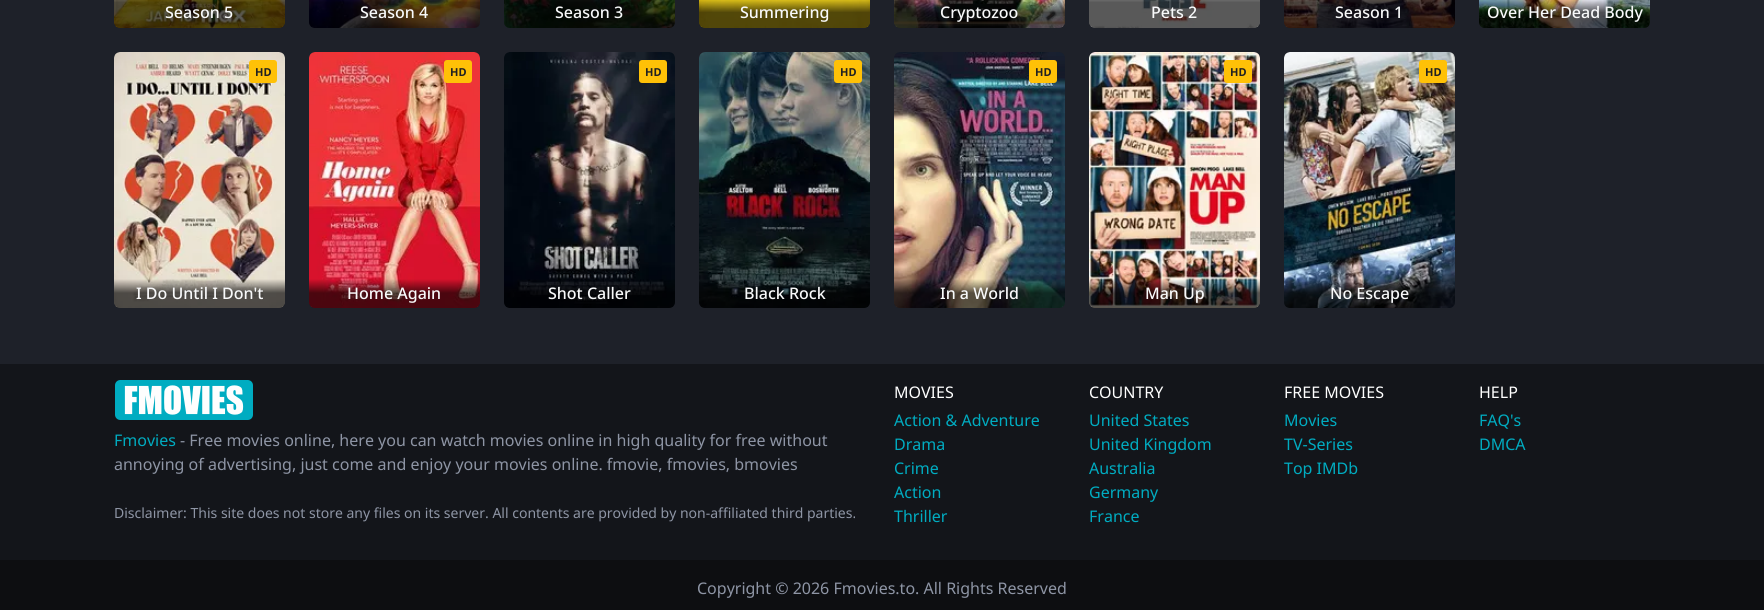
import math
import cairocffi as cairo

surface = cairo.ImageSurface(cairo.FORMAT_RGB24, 1764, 610)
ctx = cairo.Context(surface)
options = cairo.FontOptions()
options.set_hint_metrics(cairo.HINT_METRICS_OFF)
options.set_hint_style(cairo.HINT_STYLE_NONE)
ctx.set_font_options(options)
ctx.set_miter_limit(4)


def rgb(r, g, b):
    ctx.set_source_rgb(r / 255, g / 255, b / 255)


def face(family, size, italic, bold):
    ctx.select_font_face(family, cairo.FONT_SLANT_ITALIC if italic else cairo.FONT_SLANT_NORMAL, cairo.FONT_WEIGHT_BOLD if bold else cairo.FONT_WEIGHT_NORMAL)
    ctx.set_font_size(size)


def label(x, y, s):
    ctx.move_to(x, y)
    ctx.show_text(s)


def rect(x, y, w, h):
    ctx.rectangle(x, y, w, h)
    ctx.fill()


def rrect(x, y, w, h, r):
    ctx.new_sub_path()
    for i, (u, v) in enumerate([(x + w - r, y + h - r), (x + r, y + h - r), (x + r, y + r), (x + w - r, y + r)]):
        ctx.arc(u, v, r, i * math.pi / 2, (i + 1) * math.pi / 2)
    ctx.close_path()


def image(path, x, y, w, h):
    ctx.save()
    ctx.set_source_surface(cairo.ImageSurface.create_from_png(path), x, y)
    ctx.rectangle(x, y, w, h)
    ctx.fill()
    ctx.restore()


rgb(30, 33, 41)
ctx.paint()
image('image0.png', 114, 0, 171, 28)
gradient = cairo.LinearGradient(200, -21, 200, 28)
gradient.add_color_stop_rgba(0, 0, 0, 0, 0)
gradient.add_color_stop_rgba(0.48, 0, 0, 0, 0.65)
gradient.add_color_stop_rgba(1, 0, 0, 0, 0.65)
ctx.set_source(gradient)
ctx.new_path()
ctx.move_to(114, -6)
ctx.line_to(285, -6)
ctx.line_to(285, 22)
ctx.curve_to(285, 25.5, 282.5, 28, 279, 28)
ctx.line_to(120, 28)
ctx.curve_to(116.5, 28, 114, 25.5, 114, 22)
ctx.close_path()
ctx.fill()
face('Noto Sans Medium', 16, 0, 0)
rgb(248, 249, 250)
label(165, 18, 'Season 5')
image('image1.png', 309, 0, 171, 28)
gradient = cairo.LinearGradient(395, -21, 395, 28)
gradient.add_color_stop_rgba(0, 0, 0, 0, 0)
gradient.add_color_stop_rgba(0.48, 0, 0, 0, 0.65)
gradient.add_color_stop_rgba(1, 0, 0, 0, 0.65)
ctx.set_source(gradient)
ctx.new_path()
ctx.move_to(309, -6)
ctx.line_to(480, -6)
ctx.line_to(480, 22)
ctx.curve_to(480, 25.5, 477.5, 28, 474, 28)
ctx.line_to(315, 28)
ctx.curve_to(311.5, 28, 309, 25.5, 309, 22)
ctx.close_path()
ctx.fill()
rgb(248, 249, 250)
label(360, 18, 'Season 4')
image('image2.png', 504, 0, 171, 28)
gradient = cairo.LinearGradient(590, -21, 590, 28)
gradient.add_color_stop_rgba(0, 0, 0, 0, 0)
gradient.add_color_stop_rgba(0.48, 0, 0, 0, 0.65)
gradient.add_color_stop_rgba(1, 0, 0, 0, 0.65)
ctx.set_source(gradient)
ctx.new_path()
ctx.move_to(504, -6)
ctx.line_to(675, -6)
ctx.line_to(675, 22)
ctx.curve_to(675, 25.5, 672.5, 28, 669, 28)
ctx.line_to(510, 28)
ctx.curve_to(506.5, 28, 504, 25.5, 504, 22)
ctx.close_path()
ctx.fill()
rgb(248, 249, 250)
label(555, 18, 'Season 3')
image('image3.png', 699, 0, 171, 28)
gradient = cairo.LinearGradient(785, -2, 785, 28)
gradient.add_color_stop_rgba(0, 0, 0, 0, 0)
gradient.add_color_stop_rgba(0.48, 0, 0, 0, 0.65)
gradient.add_color_stop_rgba(1, 0, 0, 0, 0.65)
ctx.set_source(gradient)
ctx.new_path()
ctx.move_to(699, -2)
ctx.line_to(870, -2)
ctx.line_to(870, 22)
ctx.curve_to(870, 25.5, 867.5, 28, 864, 28)
ctx.line_to(705, 28)
ctx.curve_to(701.5, 28, 699, 25.5, 699, 22)
ctx.close_path()
ctx.fill()
rgb(248, 249, 250)
label(740, 18, 'Summering')
image('image4.png', 894, 0, 171, 28)
gradient = cairo.LinearGradient(980, -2, 980, 28)
gradient.add_color_stop_rgba(0, 0, 0, 0, 0)
gradient.add_color_stop_rgba(0.48, 0, 0, 0, 0.65)
gradient.add_color_stop_rgba(1, 0, 0, 0, 0.65)
ctx.set_source(gradient)
ctx.new_path()
ctx.move_to(894, -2)
ctx.line_to(1065, -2)
ctx.line_to(1065, 22)
ctx.curve_to(1065, 25.5, 1062.5, 28, 1059, 28)
ctx.line_to(900, 28)
ctx.curve_to(896.5, 28, 894, 25.5, 894, 22)
ctx.close_path()
ctx.fill()
rgb(248, 249, 250)
label(940, 18, 'Cryptozoo')
image('image5.png', 1089, 0, 171, 28)
gradient = cairo.LinearGradient(1175, -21, 1175, 28)
gradient.add_color_stop_rgba(0, 0, 0, 0, 0)
gradient.add_color_stop_rgba(0.48, 0, 0, 0, 0.65)
gradient.add_color_stop_rgba(1, 0, 0, 0, 0.65)
ctx.set_source(gradient)
ctx.new_path()
ctx.move_to(1089, -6)
ctx.line_to(1260, -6)
ctx.line_to(1260, 22)
ctx.curve_to(1260, 25.5, 1257.5, 28, 1254, 28)
ctx.line_to(1095, 28)
ctx.curve_to(1091.5, 28, 1089, 25.5, 1089, 22)
ctx.close_path()
ctx.fill()
rgb(248, 249, 250)
label(1151, 18, 'Pets 2')
image('image6.png', 1284, 0, 171, 28)
gradient = cairo.LinearGradient(1370, -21, 1370, 28)
gradient.add_color_stop_rgba(0, 0, 0, 0, 0)
gradient.add_color_stop_rgba(0.48, 0, 0, 0, 0.65)
gradient.add_color_stop_rgba(1, 0, 0, 0, 0.65)
ctx.set_source(gradient)
ctx.new_path()
ctx.move_to(1284, -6)
ctx.line_to(1455, -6)
ctx.line_to(1455, 22)
ctx.curve_to(1455, 25.5, 1452.5, 28, 1449, 28)
ctx.line_to(1290, 28)
ctx.curve_to(1286.5, 28, 1284, 25.5, 1284, 22)
ctx.close_path()
ctx.fill()
rgb(248, 249, 250)
label(1335, 18, 'Season 1')
image('image7.png', 1479, 0, 171, 28)
gradient = cairo.LinearGradient(1565, -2, 1565, 28)
gradient.add_color_stop_rgba(0, 0, 0, 0, 0)
gradient.add_color_stop_rgba(0.48, 0, 0, 0, 0.65)
gradient.add_color_stop_rgba(1, 0, 0, 0, 0.65)
ctx.set_source(gradient)
ctx.new_path()
ctx.move_to(1479, -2)
ctx.line_to(1650, -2)
ctx.line_to(1650, 22)
ctx.curve_to(1650, 25.5, 1647.5, 28, 1644, 28)
ctx.line_to(1485, 28)
ctx.curve_to(1481.5, 28, 1479, 25.5, 1479, 22)
ctx.close_path()
ctx.fill()
rgb(248, 249, 250)
label(1487, 18, 'Over Her Dead Body')
image('image8.png', 114, 52, 171, 256)
rgb(255, 193, 7)
rrect(249, 60, 28, 23, 3)
ctx.fill()
face('Noto Sans', 11, 0, 1)
rgb(34, 34, 34)
label(255, 76, 'HD')
gradient = cairo.LinearGradient(200, 279, 200, 308)
gradient.add_color_stop_rgba(0, 0, 0, 0, 0)
gradient.add_color_stop_rgba(0.48, 0, 0, 0, 0.65)
gradient.add_color_stop_rgba(1, 0, 0, 0, 0.65)
ctx.set_source(gradient)
ctx.new_path()
ctx.move_to(114, 279)
ctx.line_to(285, 279)
ctx.line_to(285, 302)
ctx.curve_to(285, 305.5, 282.5, 308, 279, 308)
ctx.line_to(120, 308)
ctx.curve_to(116.5, 308, 114, 305.5, 114, 302)
ctx.close_path()
ctx.fill()
face('Noto Sans Medium', 16, 0, 0)
rgb(248, 249, 250)
label(136, 299, 'I Do Until I Don\'t')
image('image9.png', 309, 52, 171, 256)
rgb(255, 193, 7)
rrect(444, 60, 28, 23, 3)
ctx.fill()
face('Noto Sans', 11, 0, 1)
rgb(34, 34, 34)
label(450, 76, 'HD')
gradient = cairo.LinearGradient(395, 279, 395, 308)
gradient.add_color_stop_rgba(0, 0, 0, 0, 0)
gradient.add_color_stop_rgba(0.48, 0, 0, 0, 0.65)
gradient.add_color_stop_rgba(1, 0, 0, 0, 0.65)
ctx.set_source(gradient)
ctx.new_path()
ctx.move_to(309, 279)
ctx.line_to(480, 279)
ctx.line_to(480, 302)
ctx.curve_to(480, 305.5, 477.5, 308, 474, 308)
ctx.line_to(315, 308)
ctx.curve_to(311.5, 308, 309, 305.5, 309, 302)
ctx.close_path()
ctx.fill()
face('Noto Sans Medium', 16, 0, 0)
rgb(248, 249, 250)
label(347, 299, 'Home Again')
image('image10.png', 504, 52, 171, 256)
rgb(255, 193, 7)
rrect(639, 60, 28, 23, 3)
ctx.fill()
face('Noto Sans', 11, 0, 1)
rgb(34, 34, 34)
label(645, 76, 'HD')
gradient = cairo.LinearGradient(590, 279, 590, 308)
gradient.add_color_stop_rgba(0, 0, 0, 0, 0)
gradient.add_color_stop_rgba(0.48, 0, 0, 0, 0.65)
gradient.add_color_stop_rgba(1, 0, 0, 0, 0.65)
ctx.set_source(gradient)
ctx.new_path()
ctx.move_to(504, 279)
ctx.line_to(675, 279)
ctx.line_to(675, 302)
ctx.curve_to(675, 305.5, 672.5, 308, 669, 308)
ctx.line_to(510, 308)
ctx.curve_to(506.5, 308, 504, 305.5, 504, 302)
ctx.close_path()
ctx.fill()
face('Noto Sans Medium', 16, 0, 0)
rgb(248, 249, 250)
label(548, 299, 'Shot Caller')
image('image11.png', 699, 52, 171, 256)
rgb(255, 193, 7)
rrect(834, 60, 28, 23, 3)
ctx.fill()
face('Noto Sans', 11, 0, 1)
rgb(34, 34, 34)
label(840, 76, 'HD')
gradient = cairo.LinearGradient(785, 279, 785, 308)
gradient.add_color_stop_rgba(0, 0, 0, 0, 0)
gradient.add_color_stop_rgba(0.48, 0, 0, 0, 0.65)
gradient.add_color_stop_rgba(1, 0, 0, 0, 0.65)
ctx.set_source(gradient)
ctx.new_path()
ctx.move_to(699, 279)
ctx.line_to(870, 279)
ctx.line_to(870, 302)
ctx.curve_to(870, 305.5, 867.5, 308, 864, 308)
ctx.line_to(705, 308)
ctx.curve_to(701.5, 308, 699, 305.5, 699, 302)
ctx.close_path()
ctx.fill()
face('Noto Sans Medium', 16, 0, 0)
rgb(248, 249, 250)
label(744, 299, 'Black Rock')
image('image12.png', 894, 52, 171, 256)
rgb(255, 193, 7)
rrect(1029, 60, 28, 23, 3)
ctx.fill()
face('Noto Sans', 11, 0, 1)
rgb(34, 34, 34)
label(1035, 76, 'HD')
gradient = cairo.LinearGradient(980, 279, 980, 308)
gradient.add_color_stop_rgba(0, 0, 0, 0, 0)
gradient.add_color_stop_rgba(0.48, 0, 0, 0, 0.65)
gradient.add_color_stop_rgba(1, 0, 0, 0, 0.65)
ctx.set_source(gradient)
ctx.new_path()
ctx.move_to(894, 279)
ctx.line_to(1065, 279)
ctx.line_to(1065, 302)
ctx.curve_to(1065, 305.5, 1062.5, 308, 1059, 308)
ctx.line_to(900, 308)
ctx.curve_to(896.5, 308, 894, 305.5, 894, 302)
ctx.close_path()
ctx.fill()
face('Noto Sans Medium', 16, 0, 0)
rgb(248, 249, 250)
label(940, 299, 'In a World')
image('image13.png', 1089, 52, 171, 256)
rgb(255, 193, 7)
rrect(1224, 60, 28, 23, 3)
ctx.fill()
face('Noto Sans', 11, 0, 1)
rgb(34, 34, 34)
label(1230, 76, 'HD')
gradient = cairo.LinearGradient(1175, 279, 1175, 308)
gradient.add_color_stop_rgba(0, 0, 0, 0, 0)
gradient.add_color_stop_rgba(0.48, 0, 0, 0, 0.65)
gradient.add_color_stop_rgba(1, 0, 0, 0, 0.65)
ctx.set_source(gradient)
ctx.new_path()
ctx.move_to(1089, 279)
ctx.line_to(1260, 279)
ctx.line_to(1260, 302)
ctx.curve_to(1260, 305.5, 1257.5, 308, 1254, 308)
ctx.line_to(1095, 308)
ctx.curve_to(1091.5, 308, 1089, 305.5, 1089, 302)
ctx.close_path()
ctx.fill()
face('Noto Sans Medium', 16, 0, 0)
rgb(248, 249, 250)
label(1145, 299, 'Man Up')
image('image14.png', 1284, 52, 171, 256)
rgb(255, 193, 7)
rrect(1419, 60, 28, 23, 3)
ctx.fill()
face('Noto Sans', 11, 0, 1)
rgb(34, 34, 34)
label(1425, 76, 'HD')
gradient = cairo.LinearGradient(1370, 279, 1370, 308)
gradient.add_color_stop_rgba(0, 0, 0, 0, 0)
gradient.add_color_stop_rgba(0.48, 0, 0, 0, 0.65)
gradient.add_color_stop_rgba(1, 0, 0, 0, 0.65)
ctx.set_source(gradient)
ctx.new_path()
ctx.move_to(1284, 279)
ctx.line_to(1455, 279)
ctx.line_to(1455, 302)
ctx.curve_to(1455, 305.5, 1452.5, 308, 1449, 308)
ctx.line_to(1290, 308)
ctx.curve_to(1286.5, 308, 1284, 305.5, 1284, 302)
ctx.close_path()
ctx.fill()
face('Noto Sans Medium', 16, 0, 0)
rgb(248, 249, 250)
label(1330, 299, 'No Escape')
rgb(19, 21, 26)
rect(0, 364, 1764, 196)
image('image15.png', 115, 380, 138, 40)
face('Noto Sans', 16, 0, 0)
rgb(0, 172, 193)
label(114, 446, 'Fmovies')
rgb(142, 149, 165)
label(180, 446, '- Free movies online, here you can watch movies online in high quality for free without')
label(114, 470, 'annoying of advertising, just come and enjoy your movies online. fmovie, fmovies, bmovies')
face('Noto Sans', 14, 0, 0)
label(114, 518, 'Disclaimer: This site does not store any files on its server. All contents are provided by non-affiliated third parties.')
face('Noto Sans', 16, 0, 0)
rgb(255, 255, 255)
label(894, 398, 'MOVIES')
rgb(0, 172, 193)
label(894, 426, 'Action & Adventure')
label(894, 450, 'Drama')
label(894, 474, 'Crime')
label(894, 498, 'Action')
label(894, 522, 'Thriller')
rgb(255, 255, 255)
label(1089, 398, 'COUNTRY')
rgb(0, 172, 193)
label(1089, 426, 'United States')
label(1089, 450, 'United Kingdom')
label(1089, 474, 'Australia')
label(1089, 498, 'Germany')
label(1089, 522, 'France')
rgb(255, 255, 255)
label(1284, 398, 'FREE MOVIES')
rgb(0, 172, 193)
label(1284, 426, 'Movies')
label(1284, 450, 'TV-Series')
label(1284, 474, 'Top IMDb')
rgb(255, 255, 255)
label(1479, 398, 'HELP')
rgb(0, 172, 193)
label(1479, 426, 'FAQ\'s')
label(1479, 450, 'DMCA')
rgb(13, 14, 17)
rect(0, 560, 1764, 50)
rgb(142, 149, 165)
label(697, 594, 'Copyright © 2026 Fmovies.to. All Rights Reserved')
surface.write_to_png('render.png')
